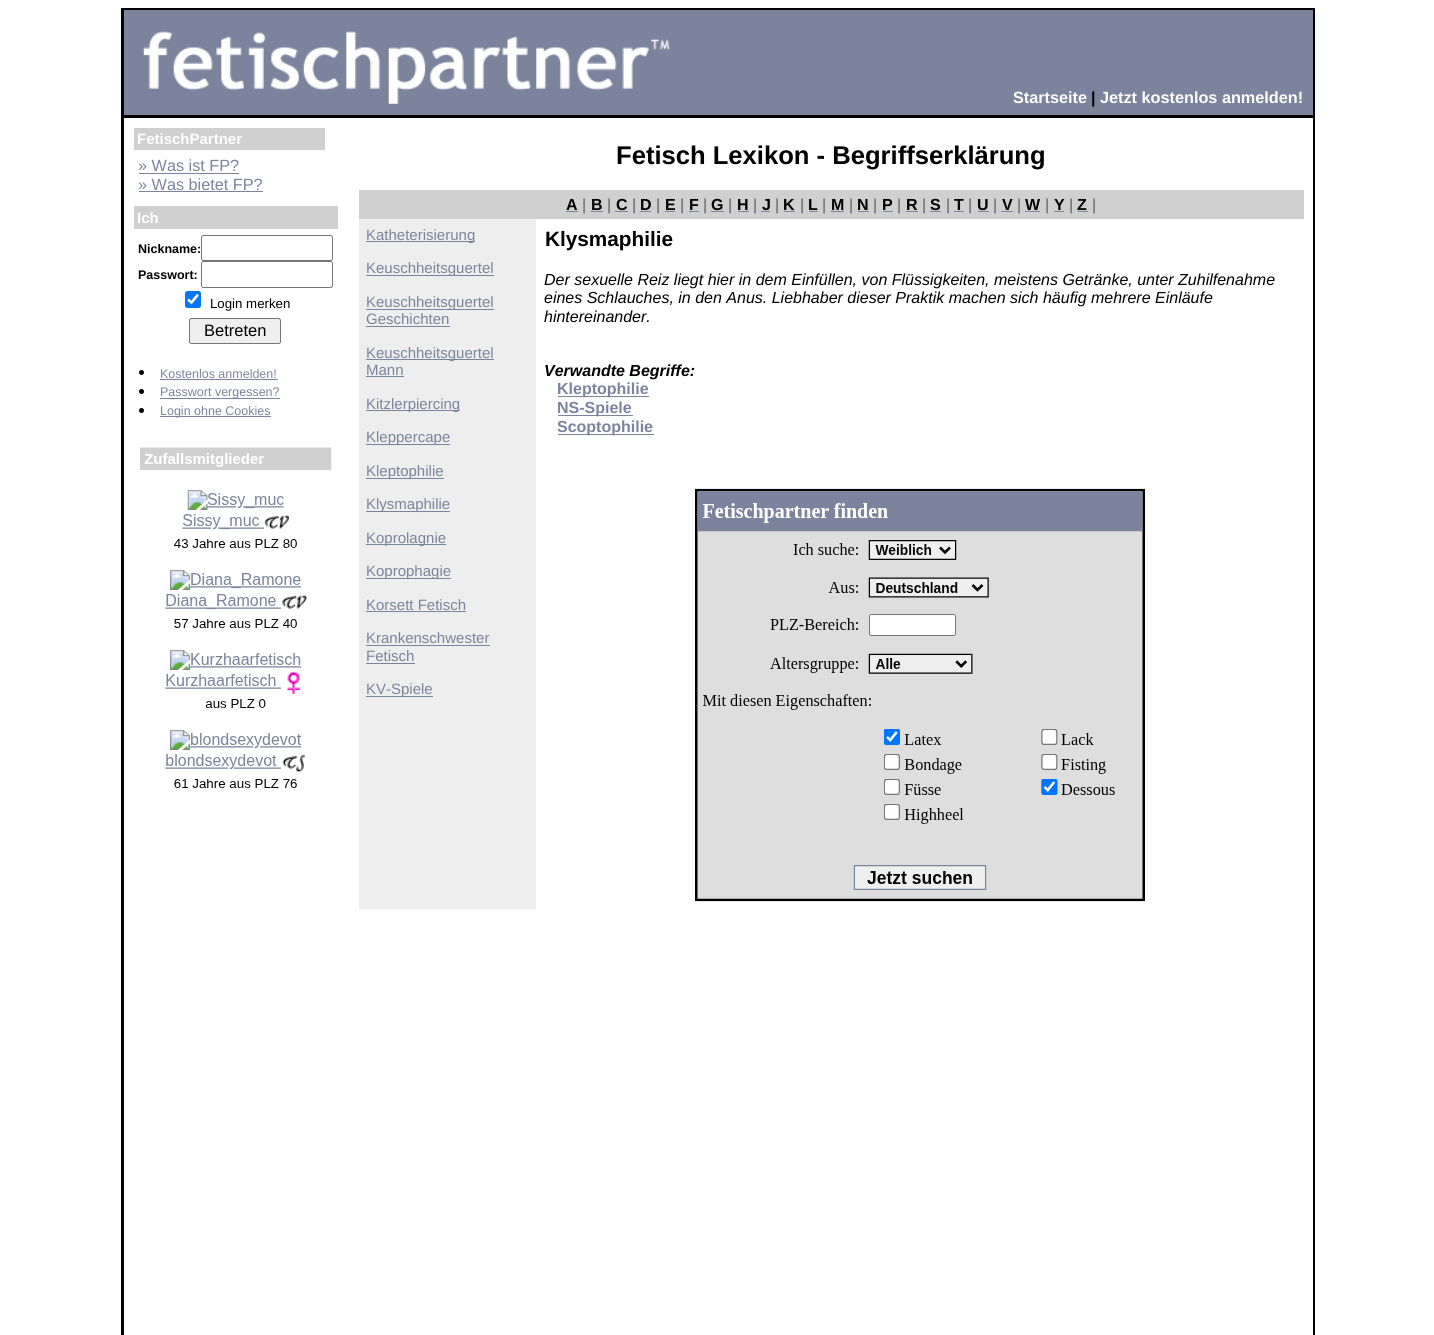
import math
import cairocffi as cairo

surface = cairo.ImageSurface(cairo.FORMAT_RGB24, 1434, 1335)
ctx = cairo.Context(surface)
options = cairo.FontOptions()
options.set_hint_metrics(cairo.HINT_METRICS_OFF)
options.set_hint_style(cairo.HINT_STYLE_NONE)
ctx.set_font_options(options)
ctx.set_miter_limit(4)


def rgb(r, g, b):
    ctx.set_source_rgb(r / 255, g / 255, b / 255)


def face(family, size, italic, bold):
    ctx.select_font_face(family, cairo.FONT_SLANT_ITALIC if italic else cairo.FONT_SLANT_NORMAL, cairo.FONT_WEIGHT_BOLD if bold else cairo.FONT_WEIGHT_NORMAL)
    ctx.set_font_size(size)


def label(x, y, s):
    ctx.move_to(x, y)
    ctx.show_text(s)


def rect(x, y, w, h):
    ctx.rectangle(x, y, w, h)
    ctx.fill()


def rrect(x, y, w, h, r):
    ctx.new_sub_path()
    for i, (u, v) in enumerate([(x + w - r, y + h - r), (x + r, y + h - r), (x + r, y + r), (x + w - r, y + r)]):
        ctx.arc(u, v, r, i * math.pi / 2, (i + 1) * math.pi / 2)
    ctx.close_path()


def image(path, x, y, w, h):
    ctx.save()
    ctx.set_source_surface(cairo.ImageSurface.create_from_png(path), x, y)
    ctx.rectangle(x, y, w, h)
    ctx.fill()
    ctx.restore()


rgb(255, 255, 255)
ctx.paint()
rgb(0, 0, 0)
rect(121, 8, 1194, 1327)
rgb(123, 132, 156)
rect(124, 10, 1189, 105)
image('image0.png', 143, 31, 527, 73)
face('Liberation Sans', 16.25, 0, 1)
rgb(255, 255, 255)
label(1013, 103, 'Startseite')
face('Liberation Sans', 16, 0, 1)
rgb(0, 0, 0)
label(1091, 103, '|')
face('Liberation Sans', 16.25, 0, 1)
rgb(255, 255, 255)
label(1100, 103, 'Jetzt kostenlos anmelden!')
rect(124, 118, 1189, 1217)
rgb(208, 208, 208)
rect(134, 128, 191, 22)
face('Liberation Sans', 15, 0, 1)
rgb(255, 255, 255)
label(137, 144, 'FetischPartner')
face('Liberation Sans', 16.25, 0, 0)
rgb(123, 132, 156)
label(138, 171, '» Was ist FP?')
rect(139, 173, 100, 1)
label(138, 190, '» Was bietet FP?')
rect(139, 191, 124, 1)
rgb(208, 208, 208)
rect(134, 206, 204, 23)
face('Liberation Sans', 15, 0, 1)
rgb(255, 255, 255)
label(137, 223, 'Ich')
face('Liberation Sans', 12.5, 0, 1)
rgb(0, 0, 0)
label(138, 253, 'Nickname:')
rrect(201.5, 235.5, 131, 25, 2)
rgb(118, 118, 118)
ctx.set_line_width(1)
ctx.stroke()
rgb(0, 0, 0)
label(138, 279, 'Passwort:')
rrect(201.5, 261.5, 131, 26, 2)
rgb(118, 118, 118)
ctx.stroke()
rgb(0, 117, 255)
rrect(185, 291, 16, 17, 2.5)
ctx.fill()
ctx.new_path()
ctx.move_to(188, 299.5)
ctx.line_to(191.5, 302.5)
ctx.line_to(198, 294.5)
rgb(255, 255, 255)
ctx.set_line_width(2.6)
ctx.stroke()
face('Liberation Sans', 13.25, 0, 0)
rgb(0, 0, 0)
label(210, 308, 'Login merken')
rgb(239, 239, 239)
rrect(189.5, 318.5, 91, 25, 2)
ctx.fill_preserve()
rgb(118, 118, 118)
ctx.set_line_width(1)
ctx.stroke()
face('Liberation Sans', 16.5, 0, 0)
rgb(0, 0, 0)
label(204, 336, 'Betreten')
ctx.new_path()
ctx.arc(141.5, 372.5, 2.5, 0, 2 * math.pi)
ctx.fill()
face('Liberation Sans', 12.5, 0, 0)
rgb(123, 132, 156)
label(160, 378, 'Kostenlos anmelden!')
rect(160, 379, 118, 1)
rgb(0, 0, 0)
ctx.new_path()
ctx.arc(141.5, 391.5, 2.5, 0, 2 * math.pi)
ctx.fill()
rgb(123, 132, 156)
rect(160, 398, 120, 1)
label(160, 396, 'Passwort vergessen?')
rgb(0, 0, 0)
ctx.new_path()
ctx.arc(141.5, 410.5, 2.5, 0, 2 * math.pi)
ctx.fill()
rgb(123, 132, 156)
rect(160, 416, 111, 1)
label(160, 415, 'Login ohne Cookies')
image('image1.png', 140, 447, 192, 341)
face('Liberation Sans', 25.6, 0, 1)
rgb(0, 0, 0)
label(616, 164, 'Fetisch Lexikon - Begriffserklärung')
rgb(208, 208, 208)
rect(359, 190, 945, 29)
face('Liberation Sans', 16, 0, 1)
rgb(0, 0, 0)
label(566, 210, 'A')
rgb(123, 132, 156)
rect(566, 211, 12, 1)
face('Liberation Sans', 16, 0, 0)
rgb(96, 96, 96)
label(582, 210, '|')
face('Liberation Sans', 16, 0, 1)
rgb(0, 0, 0)
label(591, 210, 'B')
rgb(123, 132, 156)
rect(591, 211, 12, 1)
face('Liberation Sans', 16, 0, 0)
rgb(96, 96, 96)
label(607, 210, '|')
face('Liberation Sans', 16, 0, 1)
rgb(0, 0, 0)
label(616, 210, 'C')
rgb(123, 132, 156)
rect(615, 211, 13, 1)
face('Liberation Sans', 16, 0, 0)
rgb(96, 96, 96)
label(632, 210, '|')
face('Liberation Sans', 16, 0, 1)
rgb(0, 0, 0)
label(640, 210, 'D')
rgb(123, 132, 156)
rect(640, 211, 11, 1)
face('Liberation Sans', 16, 0, 0)
rgb(96, 96, 96)
label(656, 210, '|')
face('Liberation Sans', 16, 0, 1)
rgb(0, 0, 0)
label(665, 210, 'E')
rgb(123, 132, 156)
rect(665, 211, 10, 1)
face('Liberation Sans', 16, 0, 0)
rgb(96, 96, 96)
label(680, 210, '|')
face('Liberation Sans', 16, 0, 1)
rgb(0, 0, 0)
label(689, 210, 'F')
rgb(123, 132, 156)
rect(689, 211, 10, 1)
face('Liberation Sans', 16, 0, 0)
rgb(96, 96, 96)
label(703, 210, '|')
face('Liberation Sans', 16, 0, 1)
rgb(0, 0, 0)
label(711, 210, 'G')
rgb(123, 132, 156)
rect(711, 211, 13, 1)
face('Liberation Sans', 16, 0, 0)
rgb(96, 96, 96)
label(728, 210, '|')
face('Liberation Sans', 16, 0, 1)
rgb(0, 0, 0)
label(737, 210, 'H')
rgb(123, 132, 156)
rect(738, 211, 11, 1)
face('Liberation Sans', 16, 0, 0)
rgb(96, 96, 96)
label(753, 210, '|')
face('Liberation Sans', 16, 0, 1)
rgb(0, 0, 0)
label(762, 210, 'J')
rgb(123, 132, 156)
rect(761, 211, 9, 1)
face('Liberation Sans', 16, 0, 0)
rgb(96, 96, 96)
label(775, 210, '|')
face('Liberation Sans', 16, 0, 1)
rgb(0, 0, 0)
label(783, 210, 'K')
rgb(123, 132, 156)
rect(784, 211, 11, 1)
face('Liberation Sans', 16, 0, 0)
rgb(96, 96, 96)
label(800, 210, '|')
face('Liberation Sans', 16, 0, 1)
rgb(0, 0, 0)
label(808, 210, 'L')
rgb(123, 132, 156)
rect(809, 211, 9, 1)
face('Liberation Sans', 16, 0, 0)
rgb(96, 96, 96)
label(822, 210, '|')
face('Liberation Sans', 16, 0, 1)
rgb(0, 0, 0)
label(831, 210, 'M')
rgb(123, 132, 156)
rect(831, 211, 13, 1)
face('Liberation Sans', 16, 0, 0)
rgb(96, 96, 96)
label(849, 210, '|')
face('Liberation Sans', 16, 0, 1)
rgb(0, 0, 0)
label(857, 210, 'N')
rgb(123, 132, 156)
rect(858, 211, 11, 1)
face('Liberation Sans', 16, 0, 0)
rgb(96, 96, 96)
label(873, 210, '|')
face('Liberation Sans', 16, 0, 1)
rgb(0, 0, 0)
label(882, 210, 'P')
rgb(123, 132, 156)
rect(883, 211, 10, 1)
face('Liberation Sans', 16, 0, 0)
rgb(96, 96, 96)
label(897, 210, '|')
face('Liberation Sans', 16, 0, 1)
rgb(0, 0, 0)
label(906, 210, 'R')
rgb(123, 132, 156)
rect(906, 211, 12, 1)
face('Liberation Sans', 16, 0, 0)
rgb(96, 96, 96)
label(922, 210, '|')
face('Liberation Sans', 16, 0, 1)
rgb(0, 0, 0)
label(930, 210, 'S')
rgb(123, 132, 156)
rect(930, 211, 11, 1)
face('Liberation Sans', 16, 0, 0)
rgb(96, 96, 96)
label(946, 210, '|')
face('Liberation Sans', 16, 0, 1)
rgb(0, 0, 0)
label(954, 210, 'T')
rgb(123, 132, 156)
rect(954, 211, 10, 1)
face('Liberation Sans', 16, 0, 0)
rgb(96, 96, 96)
label(968, 210, '|')
face('Liberation Sans', 16, 0, 1)
rgb(0, 0, 0)
label(977, 210, 'U')
rgb(123, 132, 156)
rect(978, 211, 11, 1)
face('Liberation Sans', 16, 0, 0)
rgb(96, 96, 96)
label(993, 210, '|')
face('Liberation Sans', 16, 0, 1)
rgb(0, 0, 0)
label(1002, 210, 'V')
rgb(123, 132, 156)
rect(1001, 211, 12, 1)
face('Liberation Sans', 16, 0, 0)
rgb(96, 96, 96)
label(1017, 210, '|')
face('Liberation Sans', 16, 0, 1)
rgb(0, 0, 0)
label(1025, 210, 'W')
rgb(123, 132, 156)
rect(1025, 211, 15, 1)
face('Liberation Sans', 16, 0, 0)
rgb(96, 96, 96)
label(1045, 210, '|')
face('Liberation Sans', 16, 0, 1)
rgb(0, 0, 0)
label(1054, 210, 'Y')
rgb(123, 132, 156)
rect(1054, 211, 10, 1)
face('Liberation Sans', 16, 0, 0)
rgb(96, 96, 96)
label(1069, 210, '|')
face('Liberation Sans', 16, 0, 1)
rgb(0, 0, 0)
label(1077, 210, 'Z')
rgb(123, 132, 156)
rect(1078, 211, 10, 1)
face('Liberation Sans', 16, 0, 0)
rgb(96, 96, 96)
label(1092, 210, '|')
rgb(238, 238, 238)
rect(359, 219, 177, 690)
rgb(123, 132, 156)
rect(366, 241, 109, 1)
face('Liberation Sans', 15, 0, 0)
label(366, 240, 'Katheterisierung')
rect(366, 275, 128, 1)
label(366, 273, 'Keuschheitsguertel')
rect(366, 309, 128, 1)
label(366, 307, 'Keuschheitsguertel')
label(366, 324, 'Geschichten')
rect(366, 326, 84, 1)
rect(366, 359, 128, 1)
label(366, 358, 'Keuschheitsguertel')
label(366, 375, 'Mann')
rect(366, 376, 38, 1)
rect(366, 410, 94, 1)
label(366, 409, 'Kitzlerpiercing')
rect(366, 444, 84, 1)
label(366, 442, 'Kleppercape')
rect(366, 478, 78, 1)
label(366, 476, 'Kleptophilie')
rect(366, 511, 84, 1)
label(366, 509, 'Klysmaphilie')
rect(366, 544, 80, 1)
label(366, 543, 'Koprolagnie')
rect(366, 578, 85, 1)
label(366, 576, 'Koprophagie')
label(366, 610, 'Korsett Fetisch')
rect(366, 611, 100, 1)
label(366, 643, 'Krankenschwester')
rect(366, 645, 124, 1)
label(366, 661, 'Fetisch')
rect(366, 663, 49, 1)
rect(366, 696, 67, 1)
label(366, 694, 'KV-Spiele')
face('Liberation Sans', 20.75, 0, 1)
rgb(0, 0, 0)
label(545, 246, 'Klysmaphilie')
face('Liberation Sans', 16, 1, 0)
label(544, 285, 'Der sexuelle Reiz liegt hier in dem Einfüllen, von Flüssigkeiten, meistens Getränke, unter Zuhilfenahme')
label(544, 303, 'eines Schlauches, in den Anus. Liebhaber dieser Praktik machen sich häufig mehrere Einläufe')
label(544, 322, 'hintereinander.')
face('Liberation Sans', 16, 1, 1)
label(544, 376, 'Verwandte Begriffe:')
rgb(123, 132, 156)
rect(558, 396, 91, 1)
face('Liberation Sans', 16, 0, 1)
label(557, 394, 'Kleptophilie')
rect(558, 415, 75, 1)
label(557, 413, 'NS-Spiele')
rect(558, 434, 96, 1)
label(557, 432, 'Scoptophilie')
image('image2.png', 695, 488, 450, 414)
surface.write_to_png('render.png')
